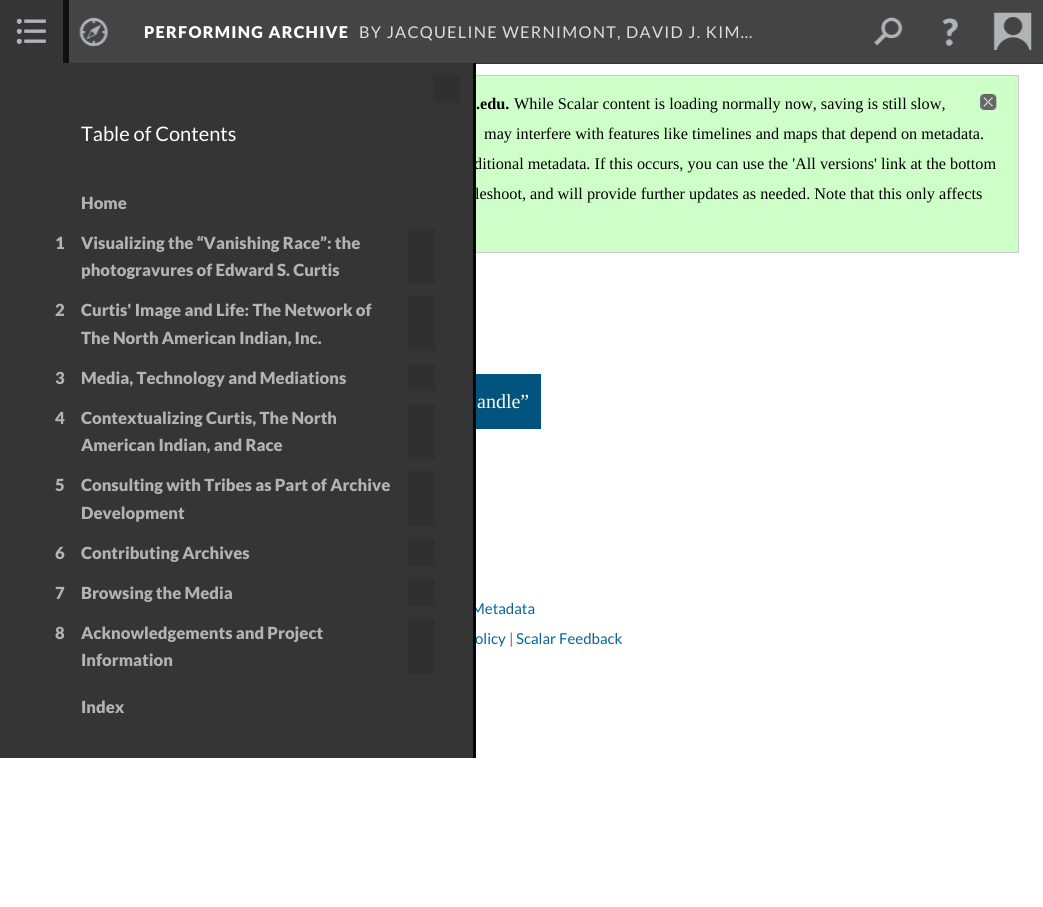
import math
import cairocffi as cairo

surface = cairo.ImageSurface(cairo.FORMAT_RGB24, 1043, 907)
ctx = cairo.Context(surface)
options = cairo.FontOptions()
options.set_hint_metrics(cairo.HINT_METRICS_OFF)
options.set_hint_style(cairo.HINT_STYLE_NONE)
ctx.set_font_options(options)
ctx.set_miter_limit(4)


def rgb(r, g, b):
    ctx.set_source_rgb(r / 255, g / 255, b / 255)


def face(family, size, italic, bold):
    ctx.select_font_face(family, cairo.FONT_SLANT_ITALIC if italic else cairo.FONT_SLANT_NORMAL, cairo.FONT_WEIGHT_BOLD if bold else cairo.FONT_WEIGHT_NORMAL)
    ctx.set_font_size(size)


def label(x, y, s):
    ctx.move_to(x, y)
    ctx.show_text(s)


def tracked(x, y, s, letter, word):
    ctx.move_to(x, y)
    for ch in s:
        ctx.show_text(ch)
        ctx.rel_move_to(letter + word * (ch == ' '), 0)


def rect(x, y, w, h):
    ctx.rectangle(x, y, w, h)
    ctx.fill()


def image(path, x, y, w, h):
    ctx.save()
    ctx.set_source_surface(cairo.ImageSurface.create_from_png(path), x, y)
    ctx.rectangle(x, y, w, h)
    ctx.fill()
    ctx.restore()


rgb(255, 255, 255)
ctx.paint()
rgb(68, 68, 68)
rect(69, 0, 974, 63)
rgb(51, 51, 51)
rect(476, 63, 567, 1)
face('Lato Black', 16.25, 0, 0)
rgb(255, 255, 255)
tracked(144, 38, 'PERFORMING ARCHIVE', 1.25, 0)
face('Lato', 16.25, 0, 0)
rgb(221, 221, 223)
tracked(359, 38, 'BY JACQUELINE WERNIMONT, DAVID J. KIM…', 1.25, 0)
image('image0.png', 874, 17, 29, 29)
image('image1.png', 942, 18, 16, 28)
image('image2.png', 993, 12, 39, 38)
image('image3.png', 79, 17, 29, 30)
rgb(53, 53, 53)
rect(0, 0, 63, 63)
image('image4.png', 16, 18, 30, 26)
ctx.rectangle(-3, -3, 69, 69)
rgb(16, 16, 16)
ctx.set_line_width(6)
ctx.stroke()
rgb(206, 255, 200)
rect(476, 76, 542, 176)
ctx.rectangle(13.5, 75.5, 1005, 177)
rgb(204, 204, 204)
ctx.set_line_width(1)
ctx.stroke()
face('Lato', 15, 0, 0)
rgb(2, 102, 151)
label(471, 614, 'Metadata')
rgb(53, 53, 53)
rect(0, 63, 473, 695)
face('Liberation Serif', 16.25, 0, 0)
rgb(0, 0, 0)
label(474, 169, 'ditional metadata. If this occurs, you can use the \'All versions\' link at the bottom')
label(475, 199, 'leshoot, and will provide further updates as needed. Note that this only affects')
face('Lato', 15, 0, 0)
rgb(2, 102, 151)
label(475, 644, 'olicy')
rgb(7, 7, 7)
rect(473, 63, 3, 695)
rgb(48, 48, 48)
rect(433, 75, 27, 28)
face('Lato', 20, 0, 0)
rgb(255, 255, 255)
label(81, 141, 'Table of Contents')
face('Lato Black', 16.7, 0, 0)
rgb(179, 179, 179)
label(81, 209, 'Home')
label(55, 249, '1')
label(81, 249, 'Visualizing the “Vanishing Race”: the')
label(81, 276, 'photogravures of Edward S. Curtis')
rgb(48, 48, 48)
rect(408, 229, 27, 55)
rgb(179, 179, 179)
label(55, 316, '2')
label(81, 316, 'Curtis\' Image and Life: The Network of')
label(81, 344, 'The North American Indian, Inc.')
rgb(48, 48, 48)
rect(408, 296, 27, 55)
rgb(179, 179, 179)
label(55, 384, '3')
label(81, 384, 'Media, Technology and Mediations')
rgb(48, 48, 48)
rect(408, 364, 27, 27)
rgb(179, 179, 179)
label(55, 424, '4')
label(81, 424, 'Contextualizing Curtis, The North')
label(81, 451, 'American Indian, and Race')
rgb(48, 48, 48)
rect(408, 404, 27, 55)
rgb(179, 179, 179)
label(55, 491, '5')
label(81, 491, 'Consulting with Tribes as Part of Archive')
label(81, 519, 'Development')
rgb(48, 48, 48)
rect(408, 471, 27, 55)
rgb(179, 179, 179)
label(55, 559, '6')
label(81, 559, 'Contributing Archives')
rgb(48, 48, 48)
rect(408, 539, 27, 27)
rgb(179, 179, 179)
label(55, 599, '7')
label(81, 599, 'Browsing the Media')
rgb(48, 48, 48)
rect(408, 579, 27, 27)
rgb(179, 179, 179)
label(55, 639, '8')
label(81, 639, 'Acknowledgements and Project')
label(81, 666, 'Information')
rgb(48, 48, 48)
rect(408, 619, 27, 55)
rgb(179, 179, 179)
label(81, 713, 'Index')
face('Liberation Serif', 16.25, 0, 1)
rgb(0, 0, 0)
label(476, 109, '.edu.')
face('Liberation Serif', 16.25, 0, 0)
label(514, 109, 'While Scalar content is loading normally now, saving is still slow,')
image('image5.png', 980, 93, 17, 17)
label(484, 139, 'may interfere with features like timelines and maps that depend on metadata.')
rgb(2, 84, 126)
rect(476, 374, 65, 55)
face('Liberation Serif', 20, 0, 0)
rgb(255, 255, 255)
label(477, 408, 'andle”')
face('Lato', 15, 0, 0)
rgb(102, 102, 102)
label(509, 644, '|')
rgb(2, 102, 151)
label(516, 644, 'Scalar Feedback')
surface.write_to_png('render.png')
